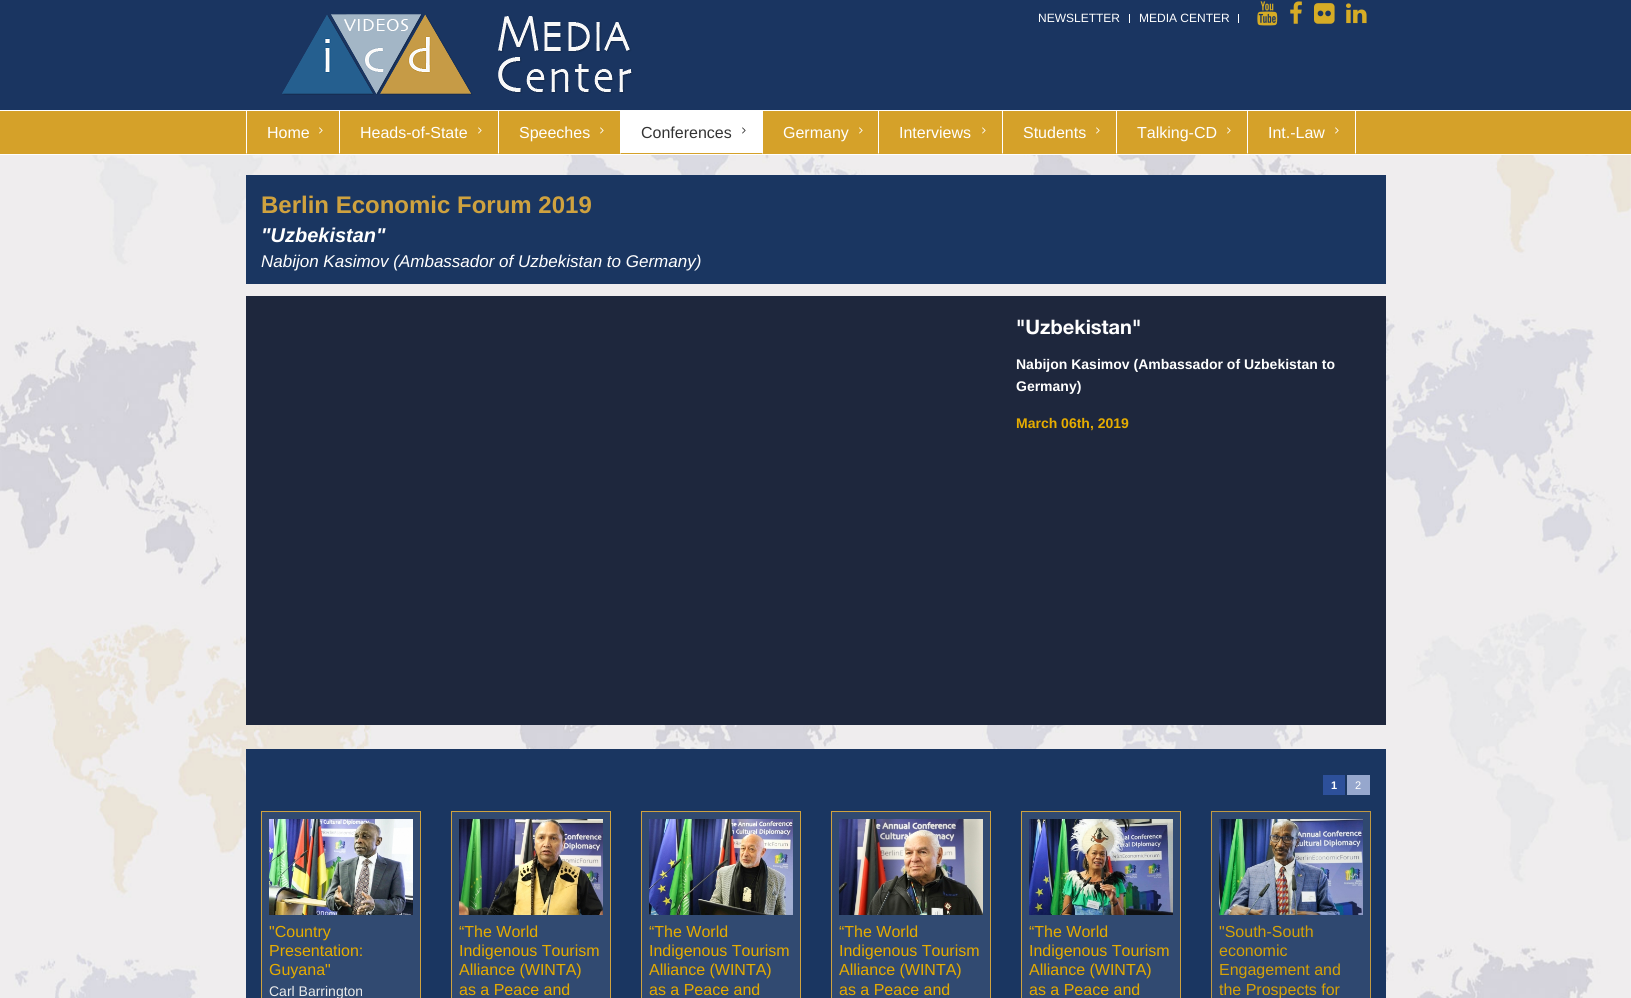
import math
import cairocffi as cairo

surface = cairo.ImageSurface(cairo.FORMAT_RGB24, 1631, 998)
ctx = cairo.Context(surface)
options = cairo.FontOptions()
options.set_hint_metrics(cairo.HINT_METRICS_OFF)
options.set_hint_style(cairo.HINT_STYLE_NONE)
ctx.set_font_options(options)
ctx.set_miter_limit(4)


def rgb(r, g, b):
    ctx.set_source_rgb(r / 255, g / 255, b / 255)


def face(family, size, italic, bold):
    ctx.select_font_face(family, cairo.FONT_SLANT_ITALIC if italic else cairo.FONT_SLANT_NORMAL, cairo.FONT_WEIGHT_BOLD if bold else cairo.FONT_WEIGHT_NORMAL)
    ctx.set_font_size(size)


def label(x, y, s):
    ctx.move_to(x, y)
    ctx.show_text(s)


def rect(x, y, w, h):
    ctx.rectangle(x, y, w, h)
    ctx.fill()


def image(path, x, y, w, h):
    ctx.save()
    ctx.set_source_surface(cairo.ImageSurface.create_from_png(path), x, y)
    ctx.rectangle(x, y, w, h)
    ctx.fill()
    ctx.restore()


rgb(255, 255, 255)
ctx.paint()
rgb(26, 53, 97)
rect(0, 0, 1631, 110)
face('Liberation Sans', 12, 0, 0)
rgb(255, 255, 255)
label(1038, 22, 'NEWSLETTER')
rect(1129, 14, 1, 9)
label(1139, 22, 'MEDIA CENTER')
rect(1238, 14, 1, 9)
image('image0.png', 1257, 1, 21, 25)
image('image1.png', 1290, 1, 12, 23)
image('image2.png', 1314, 3, 21, 21)
image('image3.png', 1346, 3, 21, 21)
image('image4.png', 282, 14, 351, 81)
rgb(213, 161, 41)
rect(0, 111, 1631, 43)
rgb(255, 255, 255)
ctx.new_path()
ctx.move_to(340, 110)
ctx.line_to(340, 154)
ctx.line_to(339, 153)
ctx.line_to(339, 111)
ctx.close_path()
ctx.fill()
ctx.new_path()
ctx.move_to(246, 154)
ctx.line_to(246, 110)
ctx.line_to(247, 111)
ctx.line_to(247, 153)
ctx.close_path()
ctx.fill()
face('Liberation Sans', 16, 0, 0)
label(267, 138, 'Home')
image('image5.png', 319, 127, 4, 7)
ctx.new_path()
ctx.move_to(499, 110)
ctx.line_to(499, 154)
ctx.line_to(498, 153)
ctx.line_to(498, 111)
ctx.close_path()
ctx.fill()
label(360, 138, 'Heads-of-State')
image('image5.png', 478, 127, 4, 7)
ctx.new_path()
ctx.move_to(621, 110)
ctx.line_to(621, 154)
ctx.line_to(620, 153)
ctx.line_to(620, 111)
ctx.close_path()
ctx.fill()
label(519, 138, 'Speeches')
image('image5.png', 600, 127, 4, 7)
ctx.new_path()
ctx.move_to(763, 110)
ctx.line_to(763, 154)
ctx.line_to(762, 153)
ctx.line_to(762, 111)
ctx.close_path()
ctx.fill()
rect(621, 111, 141, 42)
rgb(51, 51, 51)
label(641, 138, 'Conferences')
image('image6.png', 742, 127, 4, 7)
rgb(255, 255, 255)
ctx.new_path()
ctx.move_to(879, 110)
ctx.line_to(879, 154)
ctx.line_to(878, 153)
ctx.line_to(878, 111)
ctx.close_path()
ctx.fill()
label(783, 138, 'Germany')
image('image5.png', 859, 127, 4, 7)
ctx.new_path()
ctx.move_to(1003, 110)
ctx.line_to(1003, 154)
ctx.line_to(1002, 153)
ctx.line_to(1002, 111)
ctx.close_path()
ctx.fill()
label(899, 138, 'Interviews')
image('image5.png', 982, 127, 4, 7)
ctx.new_path()
ctx.move_to(1117, 110)
ctx.line_to(1117, 154)
ctx.line_to(1116, 153)
ctx.line_to(1116, 111)
ctx.close_path()
ctx.fill()
label(1023, 138, 'Students')
image('image5.png', 1096, 127, 4, 7)
ctx.new_path()
ctx.move_to(1248, 110)
ctx.line_to(1248, 154)
ctx.line_to(1247, 153)
ctx.line_to(1247, 111)
ctx.close_path()
ctx.fill()
label(1137, 138, 'Talking-CD')
image('image5.png', 1227, 127, 4, 7)
ctx.new_path()
ctx.move_to(1356, 110)
ctx.line_to(1356, 154)
ctx.line_to(1355, 153)
ctx.line_to(1355, 111)
ctx.close_path()
ctx.fill()
label(1268, 138, 'Int.-Law')
image('image5.png', 1335, 127, 4, 7)
image('image13.png', 0, 155, 1631, 843)
rgb(26, 54, 97)
rect(246, 175, 1140, 109)
face('Liberation Sans', 24, 0, 1)
rgb(207, 162, 63)
label(261, 213, 'Berlin Economic Forum 2019')
face('Liberation Sans', 20, 1, 1)
rgb(255, 255, 255)
label(261, 242, '"Uzbekistan"')
face('Liberation Sans', 17, 1, 0)
label(261, 267, 'Nabijon Kasimov (Ambassador of Uzbekistan to Germany)')
rgb(30, 39, 61)
rect(246, 296, 1140, 429)
face('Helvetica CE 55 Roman', 20, 0, 1)
rgb(255, 255, 255)
label(1016, 334, '"Uzbekistan"')
face('Liberation Sans', 14, 0, 1)
label(1016, 369, 'Nabijon Kasimov (Ambassador of Uzbekistan to')
label(1016, 391, 'Germany)')
rgb(230, 172, 0)
label(1016, 428, 'March 06th, 2019')
rgb(26, 54, 97)
rect(246, 749, 1140, 249)
rgb(45, 80, 154)
rect(1323, 775, 22, 20)
face('Liberation Sans', 11, 0, 1)
rgb(255, 255, 255)
label(1331, 789, '1')
rgb(150, 167, 205)
rect(1347, 775, 23, 20)
face('Liberation Sans', 11, 0, 0)
rgb(255, 255, 255)
label(1355, 789, '2')
rgb(49, 74, 113)
ctx.rectangle(261.5, 811.5, 159, 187)
ctx.fill_preserve()
rgb(207, 162, 63)
ctx.set_line_width(1)
ctx.stroke()
image('image7.png', 269, 819, 144, 96)
face('Liberation Sans', 16, 0, 0)
rgb(230, 172, 0)
label(269, 937, '"Country')
label(269, 956, 'Presentation:')
label(269, 975, 'Guyana"')
face('Liberation Sans', 14, 0, 0)
rgb(235, 235, 235)
label(269, 996, 'Carl Barrington')
rgb(49, 74, 113)
ctx.rectangle(451.5, 811.5, 159, 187)
ctx.fill_preserve()
rgb(207, 162, 63)
ctx.stroke()
image('image8.png', 459, 819, 144, 96)
face('Liberation Sans', 16, 0, 0)
rgb(230, 172, 0)
label(459, 937, '“The World')
label(459, 956, 'Indigenous Tourism')
label(459, 975, 'Alliance (WINTA)')
label(459, 995, 'as a Peace and')
rgb(49, 74, 113)
ctx.rectangle(641.5, 811.5, 159, 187)
ctx.fill_preserve()
rgb(207, 162, 63)
ctx.stroke()
image('image9.png', 649, 819, 144, 96)
rgb(230, 172, 0)
label(649, 937, '“The World')
label(649, 956, 'Indigenous Tourism')
label(649, 975, 'Alliance (WINTA)')
label(649, 995, 'as a Peace and')
rgb(49, 74, 113)
ctx.rectangle(831.5, 811.5, 159, 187)
ctx.fill_preserve()
rgb(207, 162, 63)
ctx.stroke()
image('image10.png', 839, 819, 144, 96)
rgb(230, 172, 0)
label(839, 937, '“The World')
label(839, 956, 'Indigenous Tourism')
label(839, 975, 'Alliance (WINTA)')
label(839, 995, 'as a Peace and')
rgb(49, 74, 113)
ctx.rectangle(1021.5, 811.5, 159, 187)
ctx.fill_preserve()
rgb(205, 161, 63)
ctx.stroke()
image('image11.png', 1029, 819, 144, 96)
rgb(230, 172, 0)
label(1029, 937, '“The World')
label(1029, 956, 'Indigenous Tourism')
label(1029, 975, 'Alliance (WINTA)')
label(1029, 995, 'as a Peace and')
rgb(47, 72, 112)
ctx.rectangle(1211.5, 811.5, 159, 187)
ctx.fill_preserve()
rgb(192, 153, 66)
ctx.stroke()
image('image12.png', 1219, 819, 144, 96)
rgb(213, 162, 8)
label(1219, 937, '"South-South')
label(1219, 956, 'economic')
label(1219, 975, 'Engagement and')
label(1219, 995, 'the Prospects for')
surface.write_to_png('render.png')
